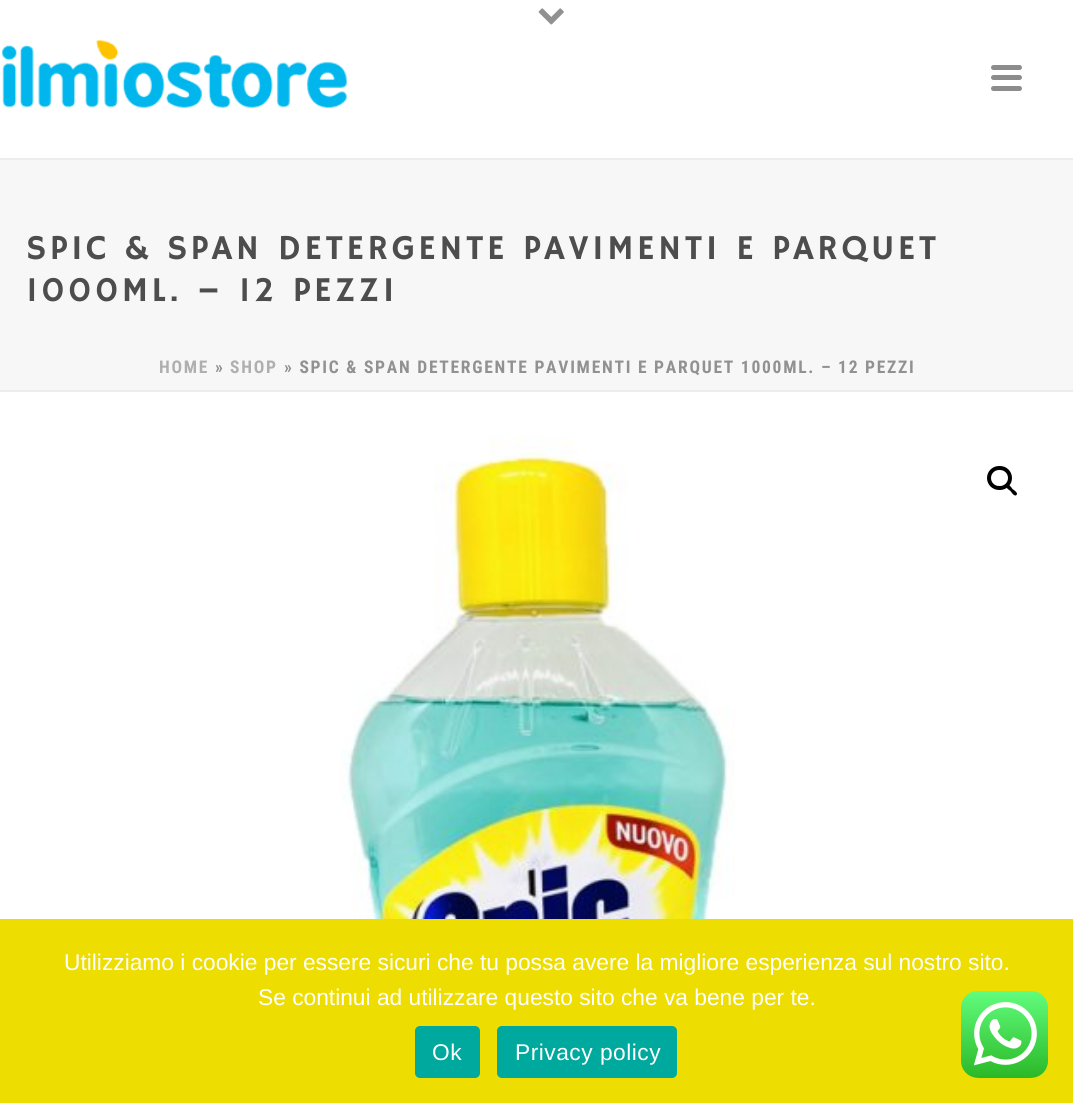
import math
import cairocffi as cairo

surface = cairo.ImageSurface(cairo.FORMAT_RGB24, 1073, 1103)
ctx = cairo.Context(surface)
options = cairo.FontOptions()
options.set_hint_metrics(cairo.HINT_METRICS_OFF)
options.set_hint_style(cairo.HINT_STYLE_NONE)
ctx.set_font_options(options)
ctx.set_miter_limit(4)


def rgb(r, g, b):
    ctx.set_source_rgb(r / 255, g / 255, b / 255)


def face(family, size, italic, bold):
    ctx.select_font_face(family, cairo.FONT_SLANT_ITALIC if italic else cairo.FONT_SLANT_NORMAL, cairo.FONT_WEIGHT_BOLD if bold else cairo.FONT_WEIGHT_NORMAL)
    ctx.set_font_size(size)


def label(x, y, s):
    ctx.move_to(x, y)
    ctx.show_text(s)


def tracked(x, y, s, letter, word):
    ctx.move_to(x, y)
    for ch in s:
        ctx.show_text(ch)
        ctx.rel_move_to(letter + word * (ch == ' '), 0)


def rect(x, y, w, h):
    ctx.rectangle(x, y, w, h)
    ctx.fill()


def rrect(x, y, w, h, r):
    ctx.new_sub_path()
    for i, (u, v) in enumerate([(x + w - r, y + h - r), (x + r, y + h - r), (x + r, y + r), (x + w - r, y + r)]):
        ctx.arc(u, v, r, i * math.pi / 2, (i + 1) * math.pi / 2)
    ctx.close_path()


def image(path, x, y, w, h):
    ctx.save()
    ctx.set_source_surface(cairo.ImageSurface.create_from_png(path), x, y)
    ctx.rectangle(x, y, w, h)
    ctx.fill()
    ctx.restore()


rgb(255, 255, 255)
ctx.paint()
rgb(247, 247, 247)
rect(0, 160, 1073, 230)
rgb(237, 237, 237)
rect(0, 390, 1073, 2)
rect(0, 158, 1073, 2)
image('image0.png', 538, 8, 26, 17)
image('image1.png', 2, 40, 345, 68)
rgb(140, 140, 140)
rrect(991, 65, 31, 5, 2.5)
ctx.fill()
rrect(991, 75, 31, 5, 2.5)
ctx.fill()
rrect(991, 86, 31, 5, 2.5)
ctx.fill()
face('Hammersmith One', 35, 0, 0)
rgb(77, 77, 77)
tracked(26, 259, 'SPIC & SPAN DETERGENTE PAVIMENTI E PARQUET', 3.5, 0)
tracked(26, 301, '1000ML. – 12 PEZZI', 3.5, 0)
face('Roboto Condensed', 17.5, 0, 1)
rgb(175, 175, 175)
tracked(159, 373, 'HOME', 1.75, 0)
rgb(145, 145, 145)
tracked(215, 373, '»', 1.75, 0)
rgb(175, 175, 175)
tracked(230, 373, 'SHOP', 1.75, 0)
rgb(145, 145, 145)
tracked(284, 373, '» SPIC & SPAN DETERGENTE PAVIMENTI E PARQUET 1000ML. – 12 PEZZI', 1.75, 0)
image('image2.png', 340, 436, 395, 483)
rrect(989, 468, 21, 20, 10)
rgb(0, 0, 0)
ctx.set_line_width(4)
ctx.stroke()
ctx.new_path()
ctx.move_to(1006.5, 485)
ctx.curve_to(1008.5, 483, 1011.5, 487.5, 1012.5, 489)
ctx.curve_to(1014, 490, 1018.5, 493, 1016.5, 495)
ctx.curve_to(1014.5, 497, 1011.5, 492.5, 1010.5, 491)
ctx.curve_to(1009, 490, 1004.5, 487, 1006.5, 485)
ctx.close_path()
ctx.fill()
rgb(237, 221, 0)
rect(0, 919, 1073, 184)
face('Liberation Sans', 22.75, 0, 0)
rgb(255, 255, 255)
label(64, 970, 'Utilizziamo i cookie per essere sicuri che tu possa avere la migliore esperienza sul nostro sito.')
label(258, 1005, 'Se continui ad utilizzare questo sito che va bene per te.')
rgb(0, 169, 157)
rrect(415, 1026, 65, 52, 5)
ctx.fill()
rgb(255, 255, 255)
tracked(432, 1060, 'Ok', 0.5, 0)
rgb(0, 169, 157)
rrect(497, 1026, 180, 52, 5)
ctx.fill()
rgb(255, 255, 255)
tracked(515, 1060, 'Privacy policy', 0.5, 0)
image('image3.png', 961, 991, 87, 87)
surface.write_to_png('render.png')
